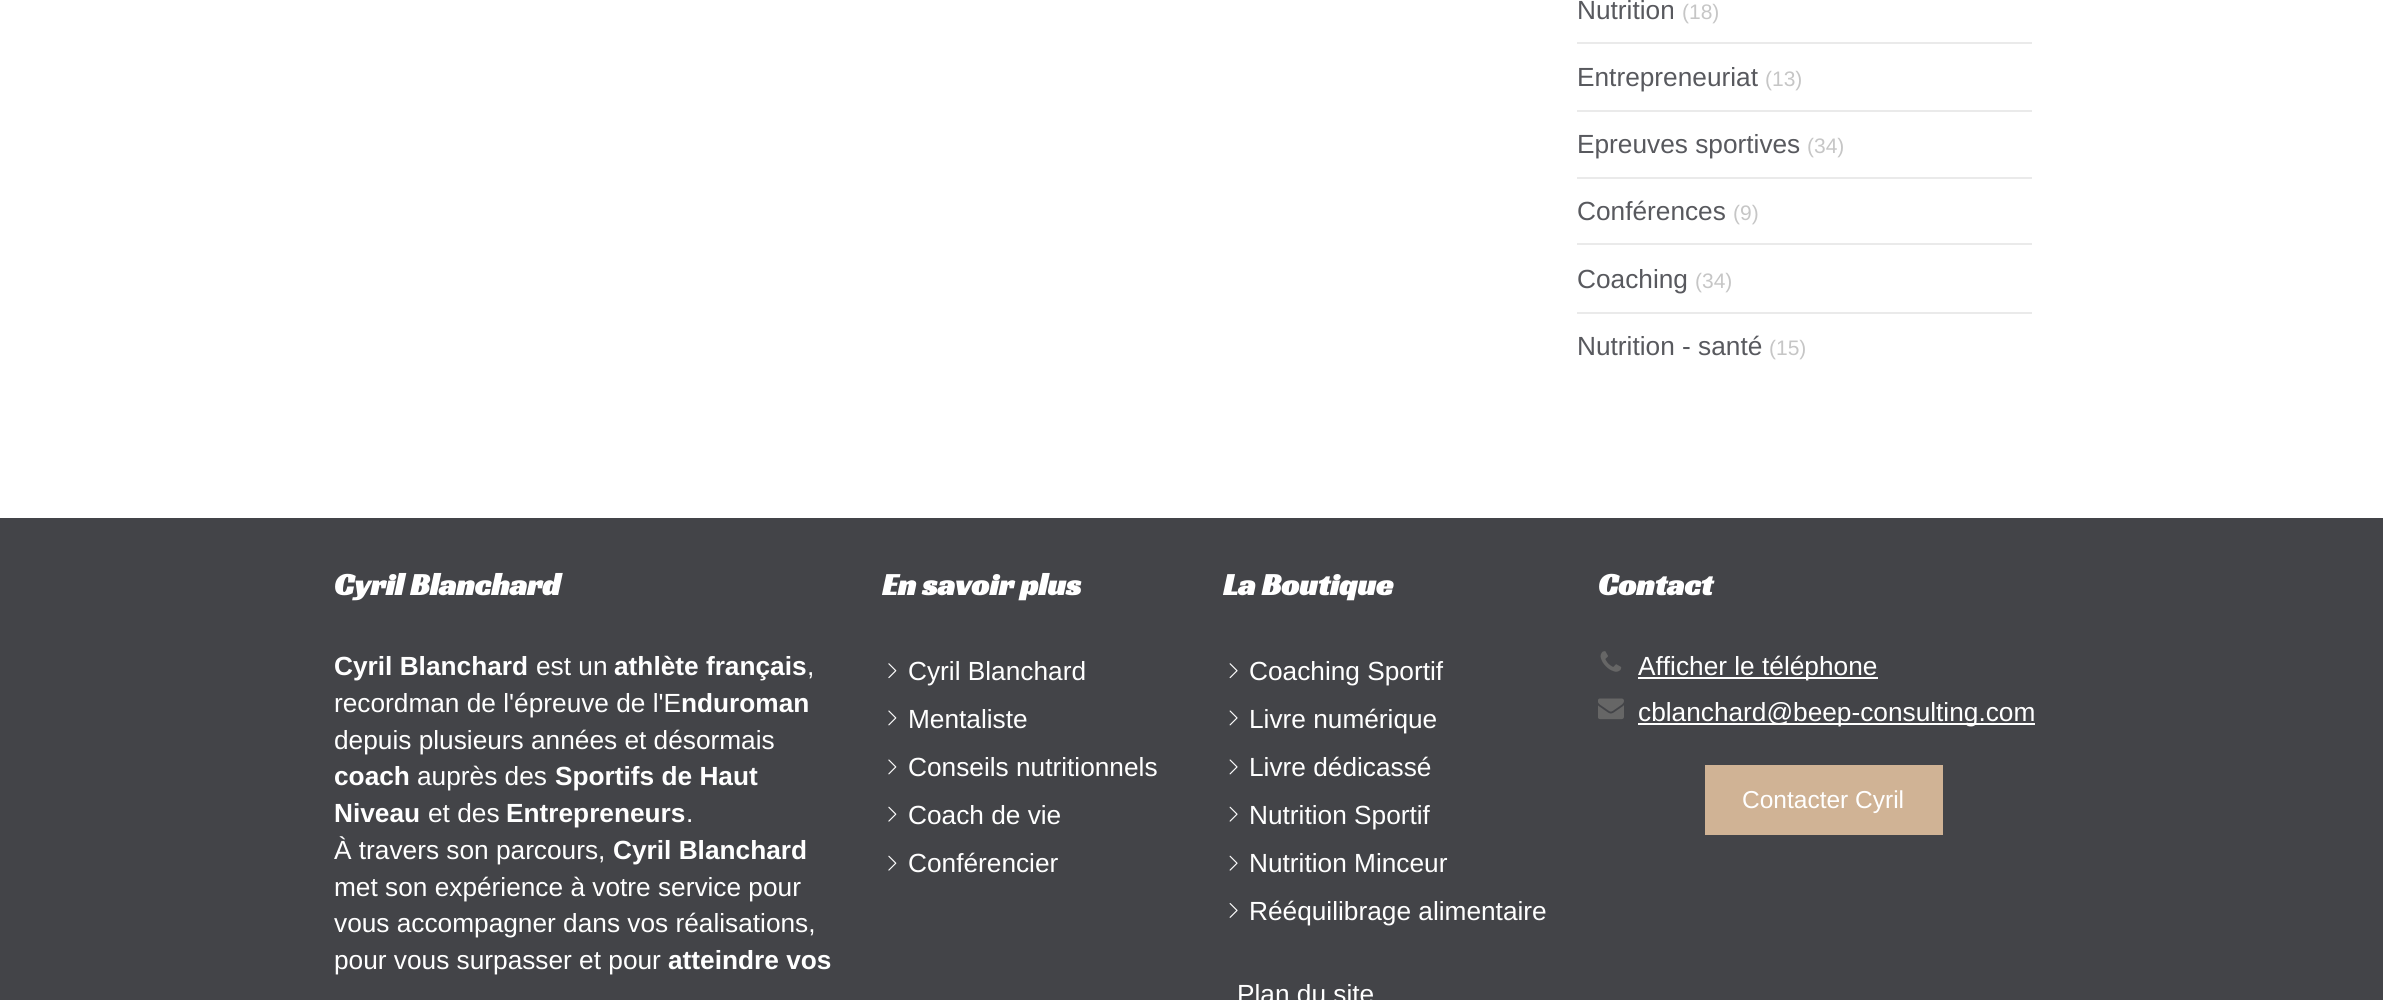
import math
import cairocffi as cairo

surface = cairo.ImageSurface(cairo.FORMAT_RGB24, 2383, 1000)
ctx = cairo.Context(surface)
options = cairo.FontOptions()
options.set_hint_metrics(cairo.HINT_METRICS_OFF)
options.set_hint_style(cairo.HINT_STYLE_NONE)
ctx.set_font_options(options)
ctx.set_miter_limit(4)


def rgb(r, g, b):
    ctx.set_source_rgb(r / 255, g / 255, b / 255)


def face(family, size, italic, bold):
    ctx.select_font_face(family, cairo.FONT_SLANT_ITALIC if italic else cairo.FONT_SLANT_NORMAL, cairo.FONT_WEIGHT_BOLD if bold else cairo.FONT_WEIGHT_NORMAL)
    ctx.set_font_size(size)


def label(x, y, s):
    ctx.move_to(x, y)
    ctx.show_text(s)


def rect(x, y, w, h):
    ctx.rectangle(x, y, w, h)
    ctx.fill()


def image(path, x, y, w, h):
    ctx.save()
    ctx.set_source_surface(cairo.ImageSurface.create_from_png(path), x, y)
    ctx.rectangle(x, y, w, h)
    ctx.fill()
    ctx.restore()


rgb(255, 255, 255)
ctx.paint()
face('Liberation Sans', 26.25, 0, 0)
rgb(88, 89, 94)
label(1577, 19, 'Nutrition')
face('Liberation Sans', 21, 0, 0)
rgb(198, 198, 198)
label(1682, 19, '(18)')
rgb(234, 234, 234)
rect(1577, 42, 455, 2)
face('Liberation Sans', 26.25, 0, 0)
rgb(88, 89, 94)
label(1577, 86, 'Entrepreneuriat')
face('Liberation Sans', 21, 0, 0)
rgb(198, 198, 198)
label(1765, 86, '(13)')
rgb(234, 234, 234)
rect(1577, 110, 455, 2)
face('Liberation Sans', 26.25, 0, 0)
rgb(88, 89, 94)
label(1577, 153, 'Epreuves sportives')
face('Liberation Sans', 21, 0, 0)
rgb(198, 198, 198)
label(1807, 153, '(34)')
rgb(234, 234, 234)
rect(1577, 177, 455, 2)
face('Liberation Sans', 26.25, 0, 0)
rgb(88, 89, 94)
label(1577, 220, 'Conférences')
face('Liberation Sans', 21, 0, 0)
rgb(198, 198, 198)
label(1733, 220, '(9)')
rgb(234, 234, 234)
rect(1577, 243, 455, 2)
face('Liberation Sans', 26.25, 0, 0)
rgb(88, 89, 94)
label(1577, 288, 'Coaching')
face('Liberation Sans', 21, 0, 0)
rgb(198, 198, 198)
label(1695, 288, '(34)')
rgb(234, 234, 234)
rect(1577, 312, 455, 2)
face('Liberation Sans', 26.25, 0, 0)
rgb(88, 89, 94)
label(1577, 355, 'Nutrition - santé')
face('Liberation Sans', 21, 0, 0)
rgb(198, 198, 198)
label(1769, 355, '(15)')
rgb(67, 68, 72)
rect(0, 518, 2383, 482)
face('Racing Sans One', 31.5, 0, 1)
rgb(255, 255, 255)
label(334, 595, 'Cyril Blanchard')
face('Liberation Sans', 26.25, 0, 1)
label(334, 675, 'Cyril Blanchard')
face('Liberation Sans', 26.25, 0, 0)
label(536, 675, 'est un')
face('Liberation Sans', 26.25, 0, 1)
label(614, 675, 'athlète français')
face('Liberation Sans', 26.25, 0, 0)
label(807, 675, ',')
label(334, 712, 'recordman de l\'épreuve de l\'E')
face('Liberation Sans', 26.25, 0, 1)
label(681, 712, 'nduroman')
face('Liberation Sans', 26.25, 0, 0)
label(334, 749, 'depuis plusieurs années et désormais')
face('Liberation Sans', 26.25, 0, 1)
label(334, 785, 'coach')
face('Liberation Sans', 26.25, 0, 0)
label(417, 785, 'auprès des')
face('Liberation Sans', 26.25, 0, 1)
label(555, 785, 'Sportifs de Haut')
label(334, 822, 'Niveau')
face('Liberation Sans', 26.25, 0, 0)
label(428, 822, 'et des')
face('Liberation Sans', 26.25, 0, 1)
label(506, 822, 'Entrepreneurs')
face('Liberation Sans', 26.25, 0, 0)
label(686, 822, '.')
label(334, 859, 'À travers son parcours,')
face('Liberation Sans', 26.25, 0, 1)
label(613, 859, 'Cyril Blanchard')
face('Liberation Sans', 26.25, 0, 0)
label(334, 896, 'met son expérience à votre service pour')
label(334, 932, 'vous accompagner dans vos réalisations,')
label(334, 969, 'pour vous surpasser et pour')
face('Liberation Sans', 26.25, 0, 1)
label(668, 969, 'atteindre vos')
face('Racing Sans One', 31.5, 0, 1)
label(882, 595, 'En savoir plus')
image('image0.png', 888, 663, 9, 16)
face('Liberation Sans', 26.25, 0, 0)
label(908, 680, 'Cyril Blanchard')
image('image1.png', 888, 710, 9, 16)
label(908, 728, 'Mentaliste')
image('image1.png', 888, 759, 9, 16)
label(908, 776, 'Conseils nutritionnels')
image('image2.png', 888, 806, 9, 16)
label(908, 824, 'Coach de vie')
image('image2.png', 888, 855, 9, 16)
label(908, 872, 'Conférencier')
face('Racing Sans One', 31.5, 0, 1)
label(1223, 595, 'La Boutique')
image('image3.png', 1229, 663, 9, 16)
face('Liberation Sans', 26.25, 0, 0)
label(1249, 680, 'Coaching Sportif')
image('image4.png', 1229, 710, 9, 16)
label(1249, 728, 'Livre numérique')
image('image4.png', 1229, 759, 9, 16)
label(1249, 776, 'Livre dédicassé')
image('image5.png', 1229, 806, 9, 16)
label(1249, 824, 'Nutrition Sportif')
image('image5.png', 1229, 855, 9, 16)
label(1249, 872, 'Nutrition Minceur')
image('image6.png', 1229, 903, 9, 15)
label(1249, 920, 'Rééquilibrage alimentaire')
label(1237, 1003, 'Plan du site')
face('Racing Sans One', 31.5, 0, 1)
label(1598, 595, 'Contact')
image('image7.png', 1600, 651, 22, 21)
rect(1638, 677, 240, 2)
face('Liberation Sans', 26.25, 0, 0)
label(1638, 675, 'Afficher le téléphone')
image('image8.png', 1598, 698, 26, 22)
rect(1638, 723, 397, 2)
label(1638, 721, 'cblanchard@beep-consulting.com')
rgb(208, 179, 149)
rect(1705, 765, 238, 70)
face('Liberation Sans', 24.5, 0, 0)
rgb(255, 255, 255)
label(1742, 808, 'Contacter Cyril')
surface.write_to_png('render.png')
